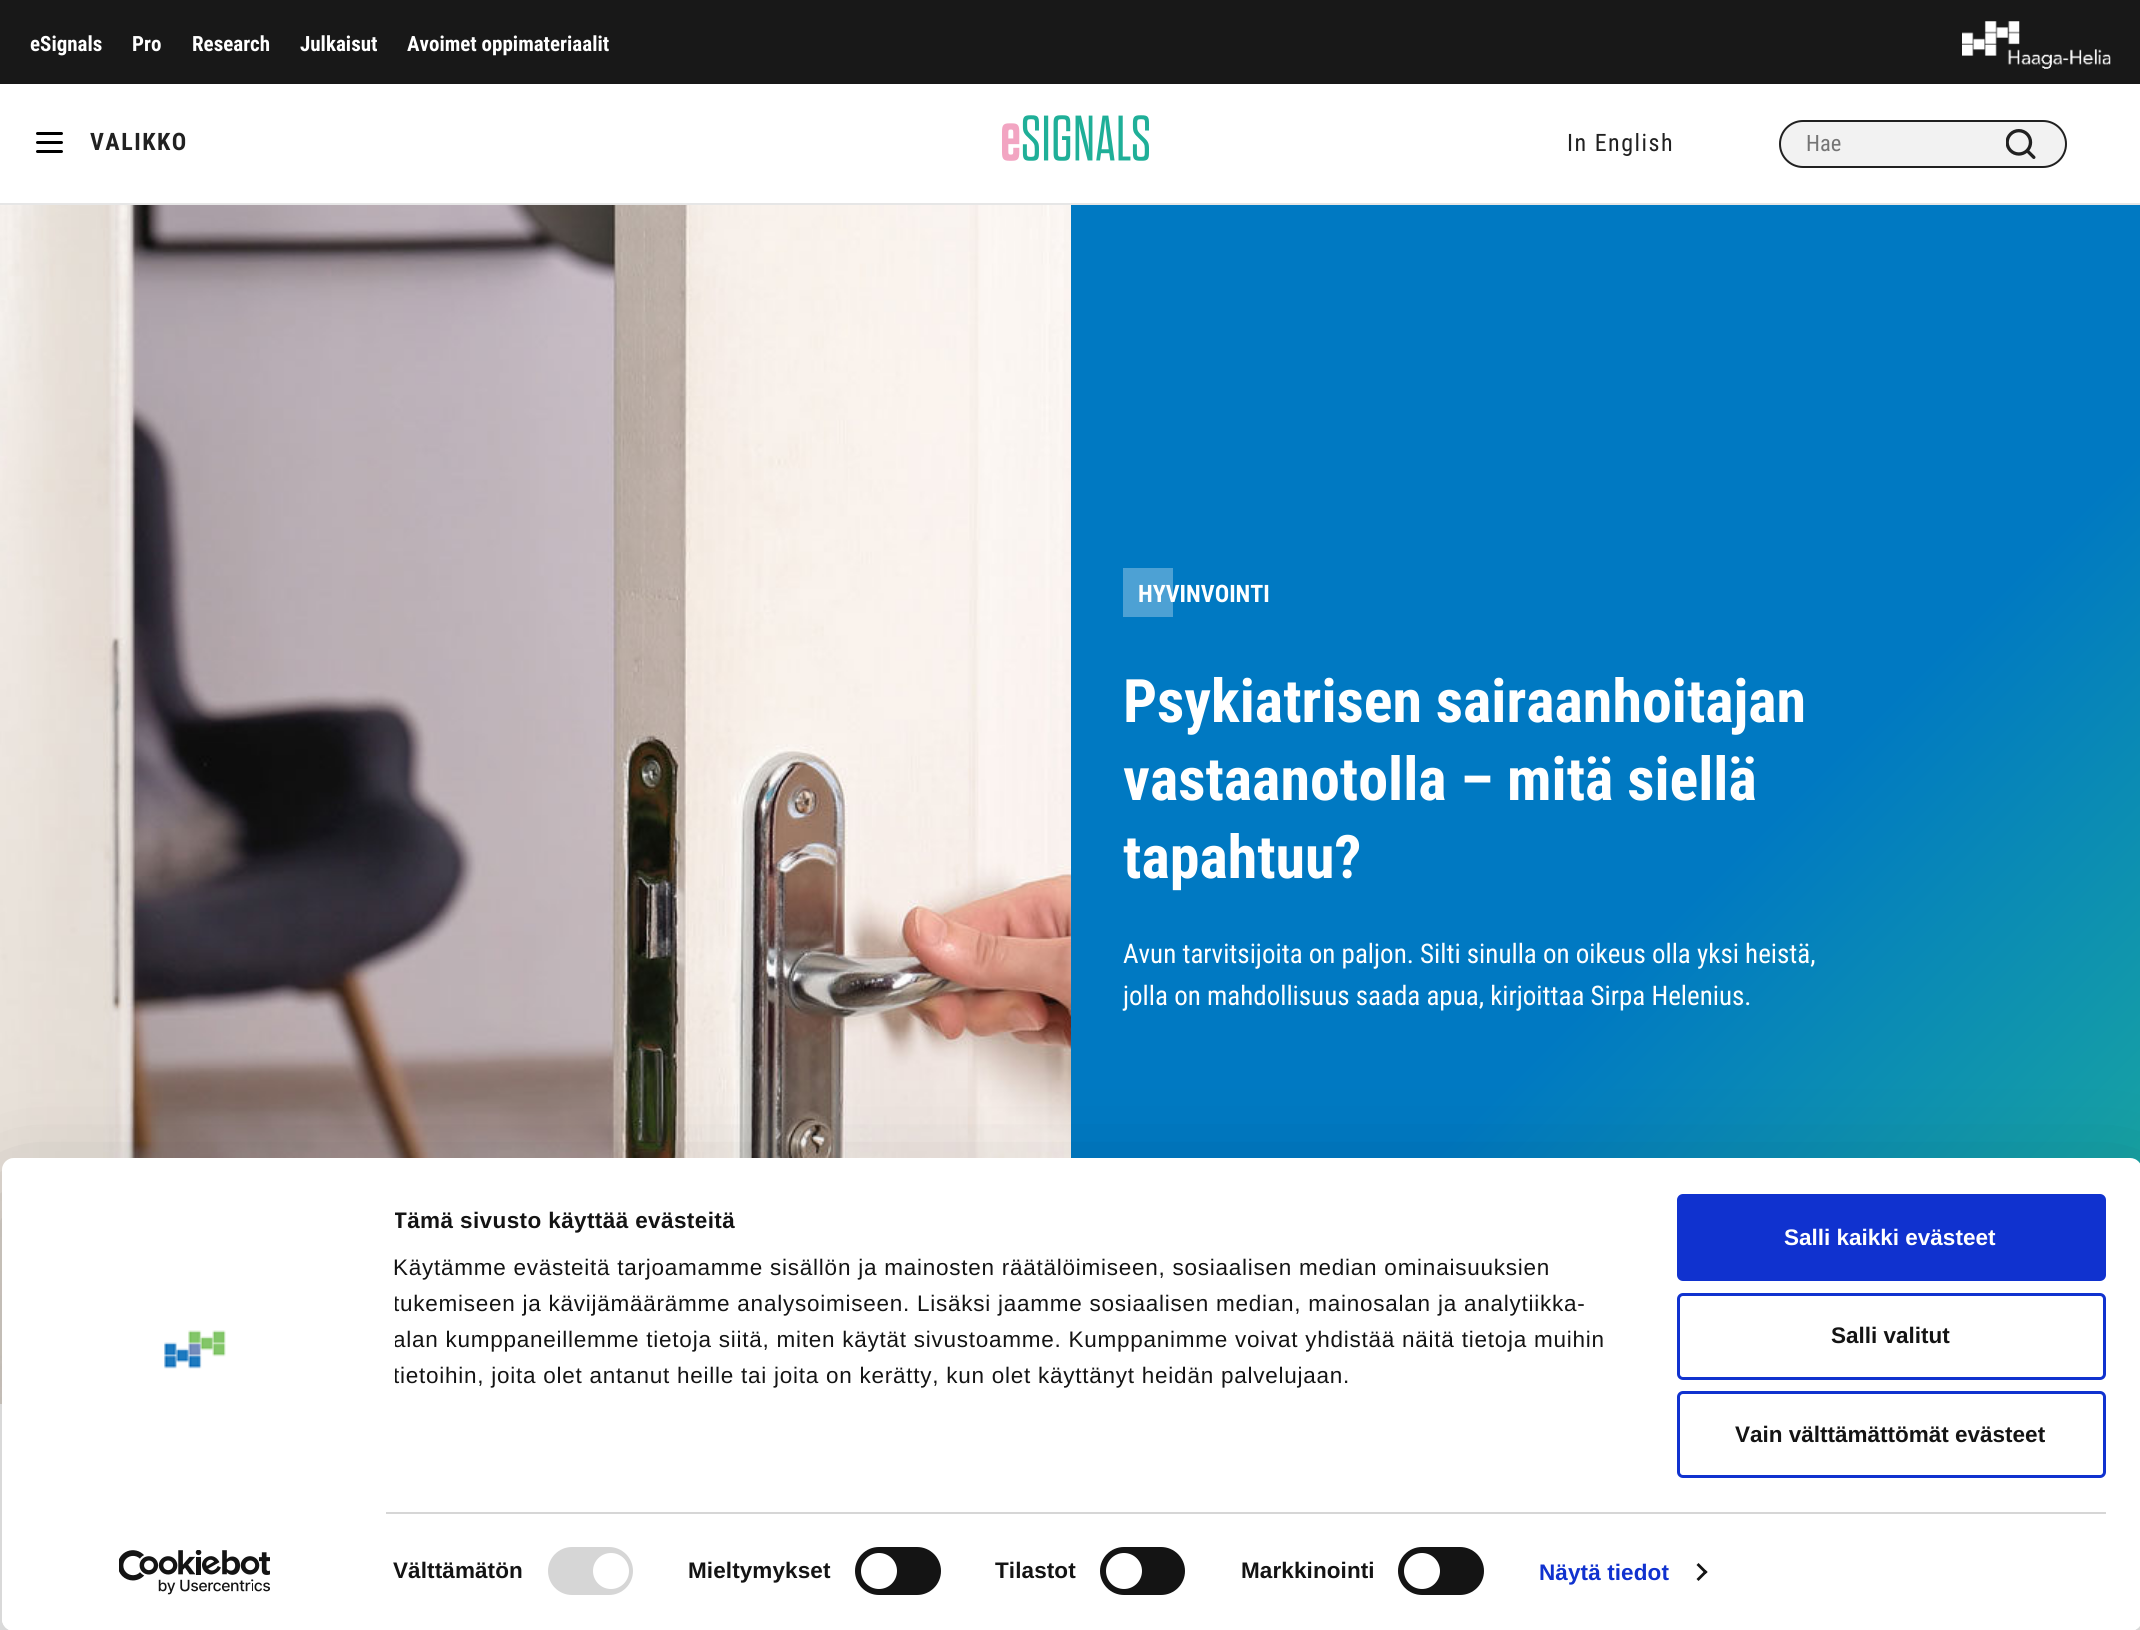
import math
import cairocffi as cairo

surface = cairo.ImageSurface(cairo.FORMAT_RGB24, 2140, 1630)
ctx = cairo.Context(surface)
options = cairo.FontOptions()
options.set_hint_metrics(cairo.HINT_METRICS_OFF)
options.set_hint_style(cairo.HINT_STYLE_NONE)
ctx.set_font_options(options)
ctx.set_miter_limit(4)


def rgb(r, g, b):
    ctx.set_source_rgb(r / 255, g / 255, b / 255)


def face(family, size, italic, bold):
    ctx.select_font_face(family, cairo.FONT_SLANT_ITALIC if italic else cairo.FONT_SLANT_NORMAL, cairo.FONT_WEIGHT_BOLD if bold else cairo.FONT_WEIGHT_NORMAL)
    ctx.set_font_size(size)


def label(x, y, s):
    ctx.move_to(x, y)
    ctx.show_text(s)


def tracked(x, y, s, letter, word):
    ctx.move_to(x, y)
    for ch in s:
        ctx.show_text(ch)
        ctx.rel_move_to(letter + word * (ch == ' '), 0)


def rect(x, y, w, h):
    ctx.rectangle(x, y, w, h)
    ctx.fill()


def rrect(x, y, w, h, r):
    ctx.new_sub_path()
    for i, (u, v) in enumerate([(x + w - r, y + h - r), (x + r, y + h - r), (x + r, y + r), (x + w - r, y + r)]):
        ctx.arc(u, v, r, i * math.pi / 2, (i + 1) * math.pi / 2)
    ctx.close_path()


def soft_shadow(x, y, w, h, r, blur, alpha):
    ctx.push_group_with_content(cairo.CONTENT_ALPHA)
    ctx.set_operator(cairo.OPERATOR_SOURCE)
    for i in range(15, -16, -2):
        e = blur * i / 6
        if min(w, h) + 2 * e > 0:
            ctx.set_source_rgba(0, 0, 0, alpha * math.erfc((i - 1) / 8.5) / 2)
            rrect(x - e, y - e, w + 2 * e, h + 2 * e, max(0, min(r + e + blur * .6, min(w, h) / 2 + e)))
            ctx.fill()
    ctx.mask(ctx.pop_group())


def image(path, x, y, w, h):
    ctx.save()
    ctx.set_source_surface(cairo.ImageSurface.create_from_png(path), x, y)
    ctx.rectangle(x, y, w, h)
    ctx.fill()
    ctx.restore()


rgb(255, 255, 255)
ctx.paint()
rgb(24, 24, 24)
rect(0, 0, 2140, 84)
face('Roboto Condensed', 21, 0, 1)
rgb(255, 255, 255)
label(30, 51, 'eSignals')
label(132, 51, 'Pro')
label(192, 51, 'Research')
label(300, 51, 'Julkaisut')
label(407, 51, 'Avoimet oppimateriaalit')
image('image0.png', 1962, 21, 149, 48)
rgb(230, 230, 230)
rect(0, 203, 2140, 2)
rgb(0, 0, 0)
rrect(36, 132, 27, 3, 1.5)
ctx.fill()
rrect(36, 141, 27, 3, 1.5)
ctx.fill()
rrect(36, 150, 27, 3, 1.5)
ctx.fill()
face('Roboto Condensed', 24, 0, 1)
rgb(33, 33, 33)
tracked(90, 150, 'VALIKKO', 1.5, 0)
image('image1.png', 1002, 115, 147, 46)
face('Roboto Condensed', 24, 0, 0)
tracked(1567, 151, 'In English', 1.5, 0)
rgb(242, 242, 242)
rrect(1779, 120, 288, 48, 24)
ctx.fill()
image('image2.png', 2006, 129, 30, 30)
rrect(1780, 121, 286, 46, 23)
rgb(33, 33, 33)
ctx.stroke()
face('Roboto Condensed', 22.5, 0, 0)
rgb(117, 117, 117)
label(1806, 151, 'Hae')
image('image3.png', 0, 205, 1071, 1199)
gradient = cairo.LinearGradient(1038, 237, 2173, 1371)
gradient.add_color_stop_rgba(0, 0, 0.475, 0.761, 1)
gradient.add_color_stop_rgba(0.58, 0, 0.475, 0.761, 1)
gradient.add_color_stop_rgba(1, 0.122, 0.69, 0.6, 1)
ctx.set_source(gradient)
rect(1071, 205, 1069, 959)
rgb(77, 161, 212)
rect(1123, 568, 50, 49)
face('Roboto Condensed', 24, 0, 1)
rgb(255, 255, 255)
label(1138, 602, 'HYVINVOINTI')
face('Roboto Condensed', 60, 0, 1)
label(1123, 722, 'Psykiatrisen sairaanhoitajan')
label(1123, 800, 'vastaanotolla – mitä siellä')
label(1123, 878, 'tapahtuu?')
face('Roboto Condensed', 27, 0, 0)
label(1123, 963, 'Avun tarvitsijoita on paljon. Silti sinulla on oikeus olla yksi heistä,')
label(1123, 1005, 'jolla on mahdollisuus saada apua, kirjoittaa Sirpa Helenius.')
ctx.save()
ctx.set_fill_rule(cairo.FILL_RULE_EVEN_ODD)
ctx.new_path()
ctx.move_to(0, 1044)
ctx.line_to(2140, 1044)
ctx.line_to(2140, 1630)
ctx.line_to(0, 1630)
ctx.close_path()
ctx.move_to(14, 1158)
ctx.line_to(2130, 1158)
ctx.curve_to(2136.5, 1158, 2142, 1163.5, 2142, 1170)
ctx.line_to(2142, 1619)
ctx.curve_to(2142, 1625.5, 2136.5, 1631, 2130, 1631)
ctx.line_to(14, 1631)
ctx.curve_to(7.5, 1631, 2, 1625.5, 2, 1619)
ctx.line_to(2, 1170)
ctx.curve_to(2, 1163.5, 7.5, 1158, 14, 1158)
ctx.close_path()
ctx.clip()
rgb(0, 0, 0)
soft_shadow(2, 1203, 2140, 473, 12, 52.5, 0.3)
ctx.restore()
rrect(2, 1158, 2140, 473, 12)
ctx.fill()
image('image4.png', 164, 1330, 62, 39)
image('image5.png', 119, 1550, 151, 45)
ctx.save()
ctx.rectangle(395, 1203, 1239, 266)
ctx.clip()
face('Liberation Sans', 22.5, 0, 1)
rgb(20, 20, 20)
tracked(393, 1228, 'Tämä sivusto käyttää evästeitä', 0.4, 0)
ctx.restore()
face('Liberation Sans', 22.5, 0, 0)
rgb(20, 20, 20)
tracked(393, 1275, 'Käytämme evästeitä tarjoamamme sisällön ja mainosten räätälöimiseen, sosiaalisen median ominaisuuksien', 0.75, 0)
ctx.save()
ctx.rectangle(395, 1203, 1239, 266)
ctx.clip()
tracked(393, 1311, 'tukemiseen ja kävijämäärämme analysoimiseen. Lisäksi jaamme sosiaalisen median, mainosalan ja analytiikka-', 0.75, 0)
tracked(393, 1347, 'alan kumppaneillemme tietoja siitä, miten käytät sivustoamme. Kumppanimme voivat yhdistää näitä tietoja muihin', 0.75, 0)
tracked(393, 1383, 'tietoihin, joita olet antanut heille tai joita on kerätty, kun olet käyttänyt heidän palvelujaan.', 0.75, 0)
ctx.restore()
rgb(214, 214, 214)
rect(386, 1512, 1720, 2)
face('Liberation Sans', 22.5, 0, 1)
rgb(20, 20, 20)
tracked(393, 1578, 'Välttämätön', 0.1, 0)
rgb(214, 214, 214)
rrect(548, 1547, 85, 48, 24)
ctx.fill()
rgb(255, 255, 255)
ctx.arc(611, 1571, 18, 0, 2 * math.pi)
ctx.fill()
rgb(20, 20, 20)
tracked(688, 1578, 'Mieltymykset', 0.1, 0)
rrect(855, 1547, 86, 48, 24)
ctx.fill()
rgb(255, 255, 255)
ctx.arc(879, 1571, 18, 0, 2 * math.pi)
ctx.fill()
rgb(20, 20, 20)
tracked(995, 1578, 'Tilastot', 0.1, 0)
rrect(1100, 1547, 85, 48, 24)
ctx.fill()
rgb(255, 255, 255)
ctx.arc(1124, 1571, 18, 0, 2 * math.pi)
ctx.fill()
rgb(20, 20, 20)
tracked(1241, 1578, 'Markkinointi', 0.1, 0)
rrect(1398, 1547, 86, 48, 24)
ctx.fill()
rgb(255, 255, 255)
ctx.arc(1422, 1571, 18, 0, 2 * math.pi)
ctx.fill()
rgb(16, 50, 207)
tracked(1539, 1580, 'Näytä tiedot', 0.1, 0)
rgb(20, 20, 20)
ctx.new_path()
ctx.move_to(1698.5, 1563)
ctx.line_to(1707.5, 1572)
ctx.line_to(1705.5, 1574)
ctx.line_to(1696.5, 1565)
ctx.close_path()
ctx.fill()
ctx.new_path()
ctx.move_to(1705.5, 1570)
ctx.line_to(1707.5, 1572)
ctx.line_to(1698.5, 1581)
ctx.line_to(1696.5, 1579)
ctx.close_path()
ctx.fill()
rgb(16, 50, 207)
rrect(1678.5, 1195.5, 426, 84, 4.5)
ctx.fill_preserve()
ctx.set_line_width(3)
ctx.stroke()
rgb(255, 255, 255)
label(1784, 1245, 'Salli kaikki evästeet')
rrect(1678.5, 1294.5, 426, 84, 4.5)
rgb(16, 50, 207)
ctx.stroke()
rgb(20, 20, 20)
label(1831, 1343, 'Salli valitut')
rrect(1678.5, 1392.5, 426, 84, 4.5)
rgb(16, 50, 207)
ctx.stroke()
rgb(20, 20, 20)
label(1735, 1442, 'Vain välttämättömät evästeet')
surface.write_to_png('render.png')
